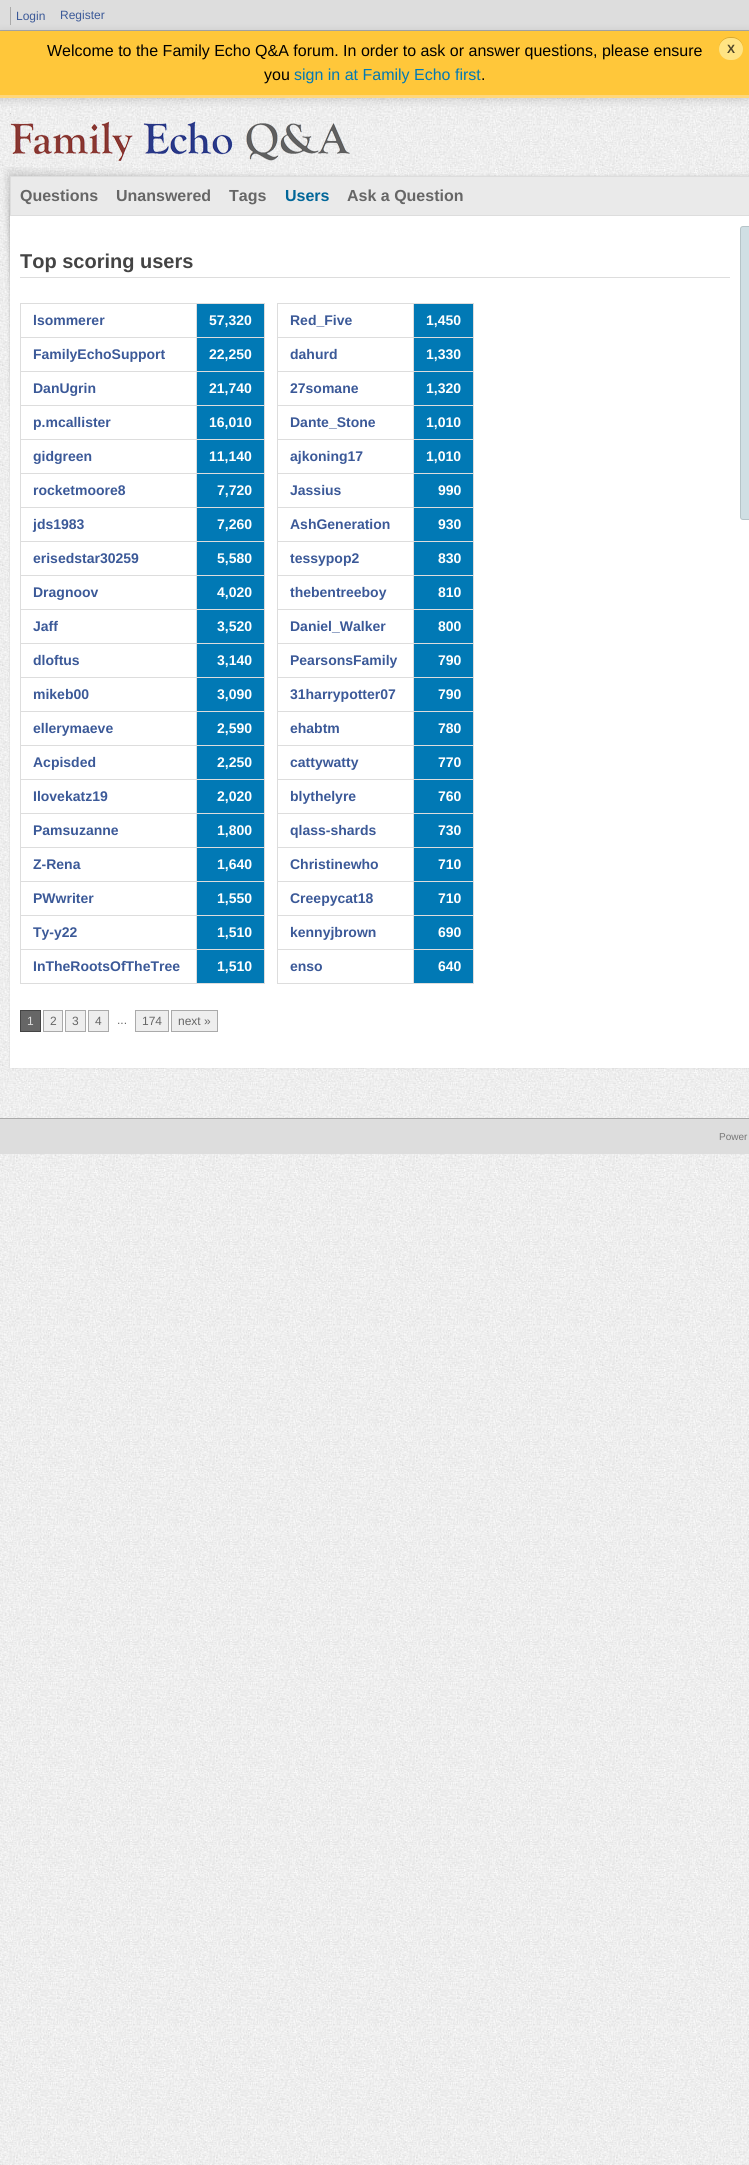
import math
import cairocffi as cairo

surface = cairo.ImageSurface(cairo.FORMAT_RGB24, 749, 2165)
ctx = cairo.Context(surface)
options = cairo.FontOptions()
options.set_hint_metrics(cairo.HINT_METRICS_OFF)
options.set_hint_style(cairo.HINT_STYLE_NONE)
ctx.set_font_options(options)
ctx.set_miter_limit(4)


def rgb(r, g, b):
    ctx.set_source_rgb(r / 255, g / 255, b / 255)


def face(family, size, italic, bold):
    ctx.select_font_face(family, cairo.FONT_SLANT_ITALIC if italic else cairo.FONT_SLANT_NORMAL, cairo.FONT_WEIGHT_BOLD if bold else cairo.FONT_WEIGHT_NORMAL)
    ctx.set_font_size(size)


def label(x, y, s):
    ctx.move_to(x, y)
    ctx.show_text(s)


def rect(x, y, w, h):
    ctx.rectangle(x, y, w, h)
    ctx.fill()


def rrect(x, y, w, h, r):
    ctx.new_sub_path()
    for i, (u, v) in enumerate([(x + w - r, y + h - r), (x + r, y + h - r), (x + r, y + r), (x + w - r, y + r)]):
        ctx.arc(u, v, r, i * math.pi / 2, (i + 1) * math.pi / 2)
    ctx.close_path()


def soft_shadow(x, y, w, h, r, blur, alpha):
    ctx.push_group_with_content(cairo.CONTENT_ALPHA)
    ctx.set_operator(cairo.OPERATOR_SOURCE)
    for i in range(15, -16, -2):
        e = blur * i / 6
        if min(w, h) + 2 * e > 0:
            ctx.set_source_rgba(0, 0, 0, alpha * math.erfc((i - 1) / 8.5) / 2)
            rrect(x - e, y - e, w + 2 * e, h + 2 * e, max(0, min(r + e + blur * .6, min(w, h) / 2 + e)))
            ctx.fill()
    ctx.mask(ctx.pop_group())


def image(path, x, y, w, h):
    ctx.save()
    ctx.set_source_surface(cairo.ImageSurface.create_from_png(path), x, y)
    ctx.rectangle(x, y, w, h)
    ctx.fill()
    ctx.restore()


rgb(255, 255, 255)
ctx.paint()
image('image0.png', 0, 98, 749, 2067)
rgb(221, 221, 221)
rect(0, 0, 749, 30)
rgb(170, 170, 170)
rect(0, 30, 749, 1)
rect(10, 7, 1, 18)
face('Liberation Sans', 12, 0, 0)
rgb(59, 89, 152)
label(16, 20, 'Login')
label(60, 19, 'Register')
image('image1.png', 10, 113, 340, 48)
rgb(0, 0, 0)
soft_shadow(0, 33, 749, 67, 0, 5, 0.15)
rgb(255, 199, 58)
rect(0, 31, 749, 64)
rgb(255, 215, 122)
rect(0, 95, 749, 3)
face('Liberation Sans', 16, 0, 0)
rgb(0, 0, 0)
label(47, 56, 'Welcome to the Family Echo Q&A forum. In order to ask or answer questions, please ensure')
rgb(217, 169, 49)
ctx.new_path()
ctx.move_to(730, 37)
ctx.curve_to(724, 37, 718.5, 42.5, 719, 48.5)
ctx.curve_to(719.5, 34.5, 742.5, 34.5, 743, 48.5)
ctx.curve_to(743.5, 42.5, 738, 37, 732, 37)
ctx.close_path()
ctx.fill()
rgb(255, 228, 132)
rrect(719, 38, 24, 22, 11)
ctx.fill()
face('Liberation Sans', 12, 0, 1)
rgb(77, 68, 40)
label(727, 53, 'X')
face('Liberation Sans', 16, 0, 0)
rgb(0, 0, 0)
label(264, 80, 'you')
rgb(1, 121, 181)
label(294, 80, 'sign in at Family Echo first')
rgb(0, 0, 0)
label(481, 80, '.')
image('image2.png', 3, 167, 746, 239)
rgb(0, 0, 0)
soft_shadow(10, 176, 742, 892, 0, 1, 0.1)
rgb(255, 255, 255)
rect(10, 216, 739, 852)
rgb(234, 234, 234)
ctx.rectangle(10.5, 176.5, 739, 39)
ctx.fill_preserve()
rgb(221, 221, 221)
ctx.set_line_width(1)
ctx.stroke()
face('Liberation Sans', 16, 0, 1)
rgb(102, 102, 102)
label(20, 201, 'Questions')
label(116, 201, 'Unanswered')
label(229, 201, 'Tags')
rgb(0, 102, 153)
label(285, 201, 'Users')
rgb(102, 102, 102)
label(347, 201, 'Ask a Question')
rgb(221, 221, 221)
rect(20, 277, 710, 1)
face('Liberation Sans', 20, 0, 1)
rgb(68, 68, 68)
label(20, 268, 'Top scoring users')
rgb(221, 221, 221)
rect(20, 303, 245, 1)
rect(20, 337, 245, 1)
rect(20, 371, 245, 1)
rect(20, 405, 245, 1)
rect(20, 439, 245, 1)
rect(20, 473, 245, 1)
rect(20, 507, 245, 1)
rect(20, 541, 245, 1)
rect(20, 575, 245, 1)
rect(20, 609, 245, 1)
rect(20, 643, 245, 1)
rect(20, 677, 245, 1)
rect(20, 711, 245, 1)
rect(20, 745, 245, 1)
rect(20, 779, 245, 1)
rect(20, 813, 245, 1)
rect(20, 847, 245, 1)
rect(20, 881, 245, 1)
rect(20, 915, 245, 1)
rect(20, 949, 245, 1)
rect(264, 949, 1, 35)
rect(196, 983, 69, 1)
rect(196, 949, 1, 35)
rect(196, 915, 1, 35)
rect(196, 881, 1, 35)
rect(196, 847, 1, 35)
rect(196, 813, 1, 35)
rect(196, 779, 1, 35)
rect(196, 745, 1, 35)
rect(196, 711, 1, 35)
rect(196, 677, 1, 35)
rect(196, 643, 1, 35)
rect(196, 609, 1, 35)
rect(196, 575, 1, 35)
rect(196, 541, 1, 35)
rect(196, 507, 1, 35)
rect(196, 473, 1, 35)
rect(196, 439, 1, 35)
rect(196, 405, 1, 35)
rect(196, 371, 1, 35)
rect(196, 337, 1, 35)
rect(196, 303, 1, 35)
rect(20, 983, 177, 1)
rect(20, 949, 1, 35)
rect(20, 915, 1, 35)
rect(20, 881, 1, 35)
rect(20, 847, 1, 35)
rect(20, 813, 1, 35)
rect(20, 779, 1, 35)
rect(20, 745, 1, 35)
rect(20, 711, 1, 35)
rect(20, 677, 1, 35)
rect(20, 643, 1, 35)
rect(20, 609, 1, 35)
rect(20, 575, 1, 35)
rect(20, 541, 1, 35)
rect(20, 507, 1, 35)
rect(20, 473, 1, 35)
rect(20, 439, 1, 35)
rect(20, 405, 1, 35)
rect(20, 371, 1, 35)
rect(20, 337, 1, 35)
rect(20, 303, 1, 35)
face('Liberation Sans', 14, 0, 1)
rgb(59, 89, 152)
label(33, 325, 'lsommerer')
rgb(1, 121, 181)
rect(197, 304, 67, 33)
rgb(221, 221, 221)
rect(264, 915, 1, 35)
rect(264, 881, 1, 35)
rect(264, 847, 1, 35)
rect(264, 813, 1, 35)
rect(264, 779, 1, 35)
rect(264, 745, 1, 35)
rect(264, 711, 1, 35)
rect(264, 677, 1, 35)
rect(264, 643, 1, 35)
rect(264, 609, 1, 35)
rect(264, 575, 1, 35)
rect(264, 541, 1, 35)
rect(264, 507, 1, 35)
rect(264, 473, 1, 35)
rect(264, 439, 1, 35)
rect(264, 405, 1, 35)
rect(264, 371, 1, 35)
rect(264, 337, 1, 35)
rect(264, 303, 1, 35)
rgb(255, 255, 255)
label(209, 325, '57,320')
rgb(221, 221, 221)
rect(277, 303, 197, 1)
rect(277, 337, 197, 1)
rect(277, 371, 197, 1)
rect(277, 405, 197, 1)
rect(277, 439, 197, 1)
rect(277, 473, 197, 1)
rect(277, 507, 197, 1)
rect(277, 541, 197, 1)
rect(277, 575, 197, 1)
rect(277, 609, 197, 1)
rect(277, 643, 197, 1)
rect(277, 677, 197, 1)
rect(277, 711, 197, 1)
rect(277, 745, 197, 1)
rect(277, 779, 197, 1)
rect(277, 813, 197, 1)
rect(277, 847, 197, 1)
rect(277, 881, 197, 1)
rect(277, 915, 197, 1)
rect(277, 949, 197, 1)
rect(473, 949, 1, 35)
rect(413, 983, 61, 1)
rect(413, 949, 1, 35)
rect(413, 915, 1, 35)
rect(413, 881, 1, 35)
rect(413, 847, 1, 35)
rect(413, 813, 1, 35)
rect(413, 779, 1, 35)
rect(413, 745, 1, 35)
rect(413, 711, 1, 35)
rect(413, 677, 1, 35)
rect(413, 643, 1, 35)
rect(413, 609, 1, 35)
rect(413, 575, 1, 35)
rect(413, 541, 1, 35)
rect(413, 507, 1, 35)
rect(413, 473, 1, 35)
rect(413, 439, 1, 35)
rect(413, 405, 1, 35)
rect(413, 371, 1, 35)
rect(413, 337, 1, 35)
rect(413, 303, 1, 35)
rect(277, 983, 137, 1)
rect(277, 949, 1, 35)
rect(277, 915, 1, 35)
rect(277, 881, 1, 35)
rect(277, 847, 1, 35)
rect(277, 813, 1, 35)
rect(277, 779, 1, 35)
rect(277, 745, 1, 35)
rect(277, 711, 1, 35)
rect(277, 677, 1, 35)
rect(277, 643, 1, 35)
rect(277, 609, 1, 35)
rect(277, 575, 1, 35)
rect(277, 541, 1, 35)
rect(277, 507, 1, 35)
rect(277, 473, 1, 35)
rect(277, 439, 1, 35)
rect(277, 405, 1, 35)
rect(277, 371, 1, 35)
rect(277, 337, 1, 35)
rect(277, 303, 1, 35)
rgb(59, 89, 152)
label(290, 325, 'Red_Five')
rgb(1, 121, 181)
rect(414, 304, 59, 33)
rgb(221, 221, 221)
rect(473, 915, 1, 35)
rect(473, 881, 1, 35)
rect(473, 847, 1, 35)
rect(473, 813, 1, 35)
rect(473, 779, 1, 35)
rect(473, 745, 1, 35)
rect(473, 711, 1, 35)
rect(473, 677, 1, 35)
rect(473, 643, 1, 35)
rect(473, 609, 1, 35)
rect(473, 575, 1, 35)
rect(473, 541, 1, 35)
rect(473, 507, 1, 35)
rect(473, 473, 1, 35)
rect(473, 439, 1, 35)
rect(473, 405, 1, 35)
rect(473, 371, 1, 35)
rect(473, 337, 1, 35)
rect(473, 303, 1, 35)
rgb(255, 255, 255)
label(426, 325, '1,450')
rgb(59, 89, 152)
label(33, 359, 'FamilyEchoSupport')
rgb(1, 121, 181)
rect(197, 338, 67, 33)
rgb(255, 255, 255)
label(209, 359, '22,250')
rgb(59, 89, 152)
label(290, 359, 'dahurd')
rgb(1, 121, 181)
rect(414, 338, 59, 33)
rgb(255, 255, 255)
label(426, 359, '1,330')
rgb(59, 89, 152)
label(33, 393, 'DanUgrin')
rgb(1, 121, 181)
rect(197, 372, 67, 33)
rgb(255, 255, 255)
label(209, 393, '21,740')
rgb(59, 89, 152)
label(290, 393, '27somane')
rgb(1, 121, 181)
rect(414, 372, 59, 33)
rgb(255, 255, 255)
label(426, 393, '1,320')
rgb(59, 89, 152)
label(33, 427, 'p.mcallister')
rgb(1, 121, 181)
rect(197, 406, 67, 33)
rgb(255, 255, 255)
label(209, 427, '16,010')
rgb(59, 89, 152)
label(290, 427, 'Dante_Stone')
rgb(1, 121, 181)
rect(414, 406, 59, 33)
rgb(255, 255, 255)
label(426, 427, '1,010')
rgb(59, 89, 152)
label(33, 461, 'gidgreen')
rgb(1, 121, 181)
rect(197, 440, 67, 33)
rgb(255, 255, 255)
label(209, 461, '11,140')
rgb(59, 89, 152)
label(290, 461, 'ajkoning17')
rgb(1, 121, 181)
rect(414, 440, 59, 33)
rgb(255, 255, 255)
label(426, 461, '1,010')
rgb(59, 89, 152)
label(33, 495, 'rocketmoore8')
rgb(1, 121, 181)
rect(197, 474, 67, 33)
rgb(255, 255, 255)
label(217, 495, '7,720')
rgb(59, 89, 152)
label(290, 495, 'Jassius')
rgb(1, 121, 181)
rect(414, 474, 59, 33)
rgb(255, 255, 255)
label(438, 495, '990')
rgb(59, 89, 152)
label(33, 529, 'jds1983')
rgb(1, 121, 181)
rect(197, 508, 67, 33)
rgb(255, 255, 255)
label(217, 529, '7,260')
rgb(59, 89, 152)
label(290, 529, 'AshGeneration')
rgb(1, 121, 181)
rect(414, 508, 59, 33)
rgb(255, 255, 255)
label(438, 529, '930')
rgb(59, 89, 152)
label(33, 563, 'erisedstar30259')
rgb(1, 121, 181)
rect(197, 542, 67, 33)
rgb(255, 255, 255)
label(217, 563, '5,580')
rgb(59, 89, 152)
label(290, 563, 'tessypop2')
rgb(1, 121, 181)
rect(414, 542, 59, 33)
rgb(255, 255, 255)
label(438, 563, '830')
rgb(59, 89, 152)
label(33, 597, 'Dragnoov')
rgb(1, 121, 181)
rect(197, 576, 67, 33)
rgb(255, 255, 255)
label(217, 597, '4,020')
rgb(59, 89, 152)
label(290, 597, 'thebentreeboy')
rgb(1, 121, 181)
rect(414, 576, 59, 33)
rgb(255, 255, 255)
label(438, 597, '810')
rgb(59, 89, 152)
label(33, 631, 'Jaff')
rgb(1, 121, 181)
rect(197, 610, 67, 33)
rgb(255, 255, 255)
label(217, 631, '3,520')
rgb(59, 89, 152)
label(290, 631, 'Daniel_Walker')
rgb(1, 121, 181)
rect(414, 610, 59, 33)
rgb(255, 255, 255)
label(438, 631, '800')
rgb(59, 89, 152)
label(33, 665, 'dloftus')
rgb(1, 121, 181)
rect(197, 644, 67, 33)
rgb(255, 255, 255)
label(217, 665, '3,140')
rgb(59, 89, 152)
label(290, 665, 'PearsonsFamily')
rgb(1, 121, 181)
rect(414, 644, 59, 33)
rgb(255, 255, 255)
label(438, 665, '790')
rgb(59, 89, 152)
label(33, 699, 'mikeb00')
rgb(1, 121, 181)
rect(197, 678, 67, 33)
rgb(255, 255, 255)
label(217, 699, '3,090')
rgb(59, 89, 152)
label(290, 699, '31harrypotter07')
rgb(1, 121, 181)
rect(414, 678, 59, 33)
rgb(255, 255, 255)
label(438, 699, '790')
rgb(59, 89, 152)
label(33, 733, 'ellerymaeve')
rgb(1, 121, 181)
rect(197, 712, 67, 33)
rgb(255, 255, 255)
label(217, 733, '2,590')
rgb(59, 89, 152)
label(290, 733, 'ehabtm')
rgb(1, 121, 181)
rect(414, 712, 59, 33)
rgb(255, 255, 255)
label(438, 733, '780')
rgb(59, 89, 152)
label(33, 767, 'Acpisded')
rgb(1, 121, 181)
rect(197, 746, 67, 33)
rgb(255, 255, 255)
label(217, 767, '2,250')
rgb(59, 89, 152)
label(290, 767, 'cattywatty')
rgb(1, 121, 181)
rect(414, 746, 59, 33)
rgb(255, 255, 255)
label(438, 767, '770')
rgb(59, 89, 152)
label(33, 801, 'Ilovekatz19')
rgb(1, 121, 181)
rect(197, 780, 67, 33)
rgb(255, 255, 255)
label(217, 801, '2,020')
rgb(59, 89, 152)
label(290, 801, 'blythelyre')
rgb(1, 121, 181)
rect(414, 780, 59, 33)
rgb(255, 255, 255)
label(438, 801, '760')
rgb(59, 89, 152)
label(33, 835, 'Pamsuzanne')
rgb(1, 121, 181)
rect(197, 814, 67, 33)
rgb(255, 255, 255)
label(217, 835, '1,800')
rgb(59, 89, 152)
label(290, 835, 'qlass-shards')
rgb(1, 121, 181)
rect(414, 814, 59, 33)
rgb(255, 255, 255)
label(438, 835, '730')
rgb(59, 89, 152)
label(33, 869, 'Z-Rena')
rgb(1, 121, 181)
rect(197, 848, 67, 33)
rgb(255, 255, 255)
label(217, 869, '1,640')
rgb(59, 89, 152)
label(290, 869, 'Christinewho')
rgb(1, 121, 181)
rect(414, 848, 59, 33)
rgb(255, 255, 255)
label(438, 869, '710')
rgb(59, 89, 152)
label(33, 903, 'PWwriter')
rgb(1, 121, 181)
rect(197, 882, 67, 33)
rgb(255, 255, 255)
label(217, 903, '1,550')
rgb(59, 89, 152)
label(290, 903, 'Creepycat18')
rgb(1, 121, 181)
rect(414, 882, 59, 33)
rgb(255, 255, 255)
label(438, 903, '710')
rgb(59, 89, 152)
label(33, 937, 'Ty-y22')
rgb(1, 121, 181)
rect(197, 916, 67, 33)
rgb(255, 255, 255)
label(217, 937, '1,510')
rgb(59, 89, 152)
label(290, 937, 'kennyjbrown')
rgb(1, 121, 181)
rect(414, 916, 59, 33)
rgb(255, 255, 255)
label(438, 937, '690')
rgb(59, 89, 152)
label(33, 971, 'InTheRootsOfTheTree')
rgb(1, 121, 181)
rect(197, 950, 67, 33)
rgb(255, 255, 255)
label(217, 971, '1,510')
rgb(59, 89, 152)
label(290, 971, 'enso')
rgb(1, 121, 181)
rect(414, 950, 59, 33)
rgb(255, 255, 255)
label(438, 971, '640')
rgb(102, 102, 102)
ctx.rectangle(20.5, 1010.5, 20, 21)
ctx.fill_preserve()
rgb(68, 68, 68)
ctx.stroke()
face('Liberation Sans', 12, 0, 0)
rgb(221, 221, 221)
label(27, 1025, '1')
rgb(238, 238, 238)
ctx.rectangle(43.5, 1010.5, 19, 21)
ctx.fill_preserve()
rgb(170, 170, 170)
ctx.stroke()
rgb(102, 102, 102)
label(50, 1025, '2')
rgb(238, 238, 238)
ctx.rectangle(65.5, 1010.5, 20, 21)
ctx.fill_preserve()
rgb(170, 170, 170)
ctx.stroke()
rgb(102, 102, 102)
label(72, 1025, '3')
rgb(238, 238, 238)
ctx.rectangle(88.5, 1010.5, 20, 21)
ctx.fill_preserve()
rgb(170, 170, 170)
ctx.stroke()
rgb(102, 102, 102)
label(95, 1025, '4')
label(117, 1024, '...')
rgb(238, 238, 238)
ctx.rectangle(135.5, 1010.5, 33, 21)
ctx.fill_preserve()
rgb(170, 170, 170)
ctx.stroke()
rgb(102, 102, 102)
label(142, 1025, '174')
rgb(238, 238, 238)
ctx.rectangle(171.5, 1010.5, 46, 21)
ctx.fill_preserve()
rgb(170, 170, 170)
ctx.stroke()
rgb(102, 102, 102)
label(178, 1025, 'next »')
rgb(208, 223, 228)
rrect(740.5, 226.5, 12, 293, 2.5)
ctx.fill_preserve()
rgb(182, 196, 200)
ctx.stroke()
rgb(221, 221, 221)
rect(0, 1119, 749, 35)
rgb(170, 170, 170)
rect(0, 1118, 749, 1)
face('Liberation Sans', 10, 0, 0)
rgb(119, 119, 119)
label(719, 1140, 'Power')
surface.write_to_png('render.png')
